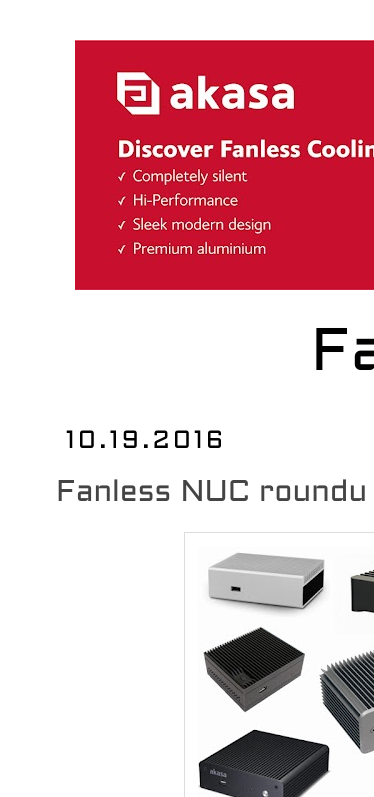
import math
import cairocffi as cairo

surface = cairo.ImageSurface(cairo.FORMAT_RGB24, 374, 797)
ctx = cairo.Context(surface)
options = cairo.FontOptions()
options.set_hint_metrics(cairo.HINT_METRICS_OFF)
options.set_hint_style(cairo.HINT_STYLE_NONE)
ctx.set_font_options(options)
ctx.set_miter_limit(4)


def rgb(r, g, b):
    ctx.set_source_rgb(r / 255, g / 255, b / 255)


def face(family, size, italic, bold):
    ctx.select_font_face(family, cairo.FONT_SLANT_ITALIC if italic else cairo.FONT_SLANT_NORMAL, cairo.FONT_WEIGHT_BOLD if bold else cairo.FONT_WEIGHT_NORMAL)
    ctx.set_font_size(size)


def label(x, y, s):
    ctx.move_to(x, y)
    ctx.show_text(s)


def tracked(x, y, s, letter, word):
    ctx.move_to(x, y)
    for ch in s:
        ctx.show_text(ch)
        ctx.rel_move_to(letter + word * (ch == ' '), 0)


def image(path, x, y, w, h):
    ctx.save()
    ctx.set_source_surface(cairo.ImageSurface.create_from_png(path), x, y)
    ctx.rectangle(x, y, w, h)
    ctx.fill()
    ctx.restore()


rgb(255, 255, 255)
ctx.paint()
image('image0.png', 75, 40, 299, 250)
face('Aldrich', 60, 0, 0)
rgb(0, 0, 0)
label(311, 370, 'Fa')
face('Aldrich', 25, 0, 0)
tracked(66, 448, '10.19.2016', 3, 0)
face('Aldrich', 30, 0, 0)
rgb(68, 68, 68)
label(56, 501, 'Fanless NUC roundu')
ctx.rectangle(184.5, 532.5, 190, 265)
rgb(221, 221, 221)
ctx.set_line_width(1)
ctx.stroke()
image('image1.png', 198, 547, 176, 250)
surface.write_to_png('render.png')
